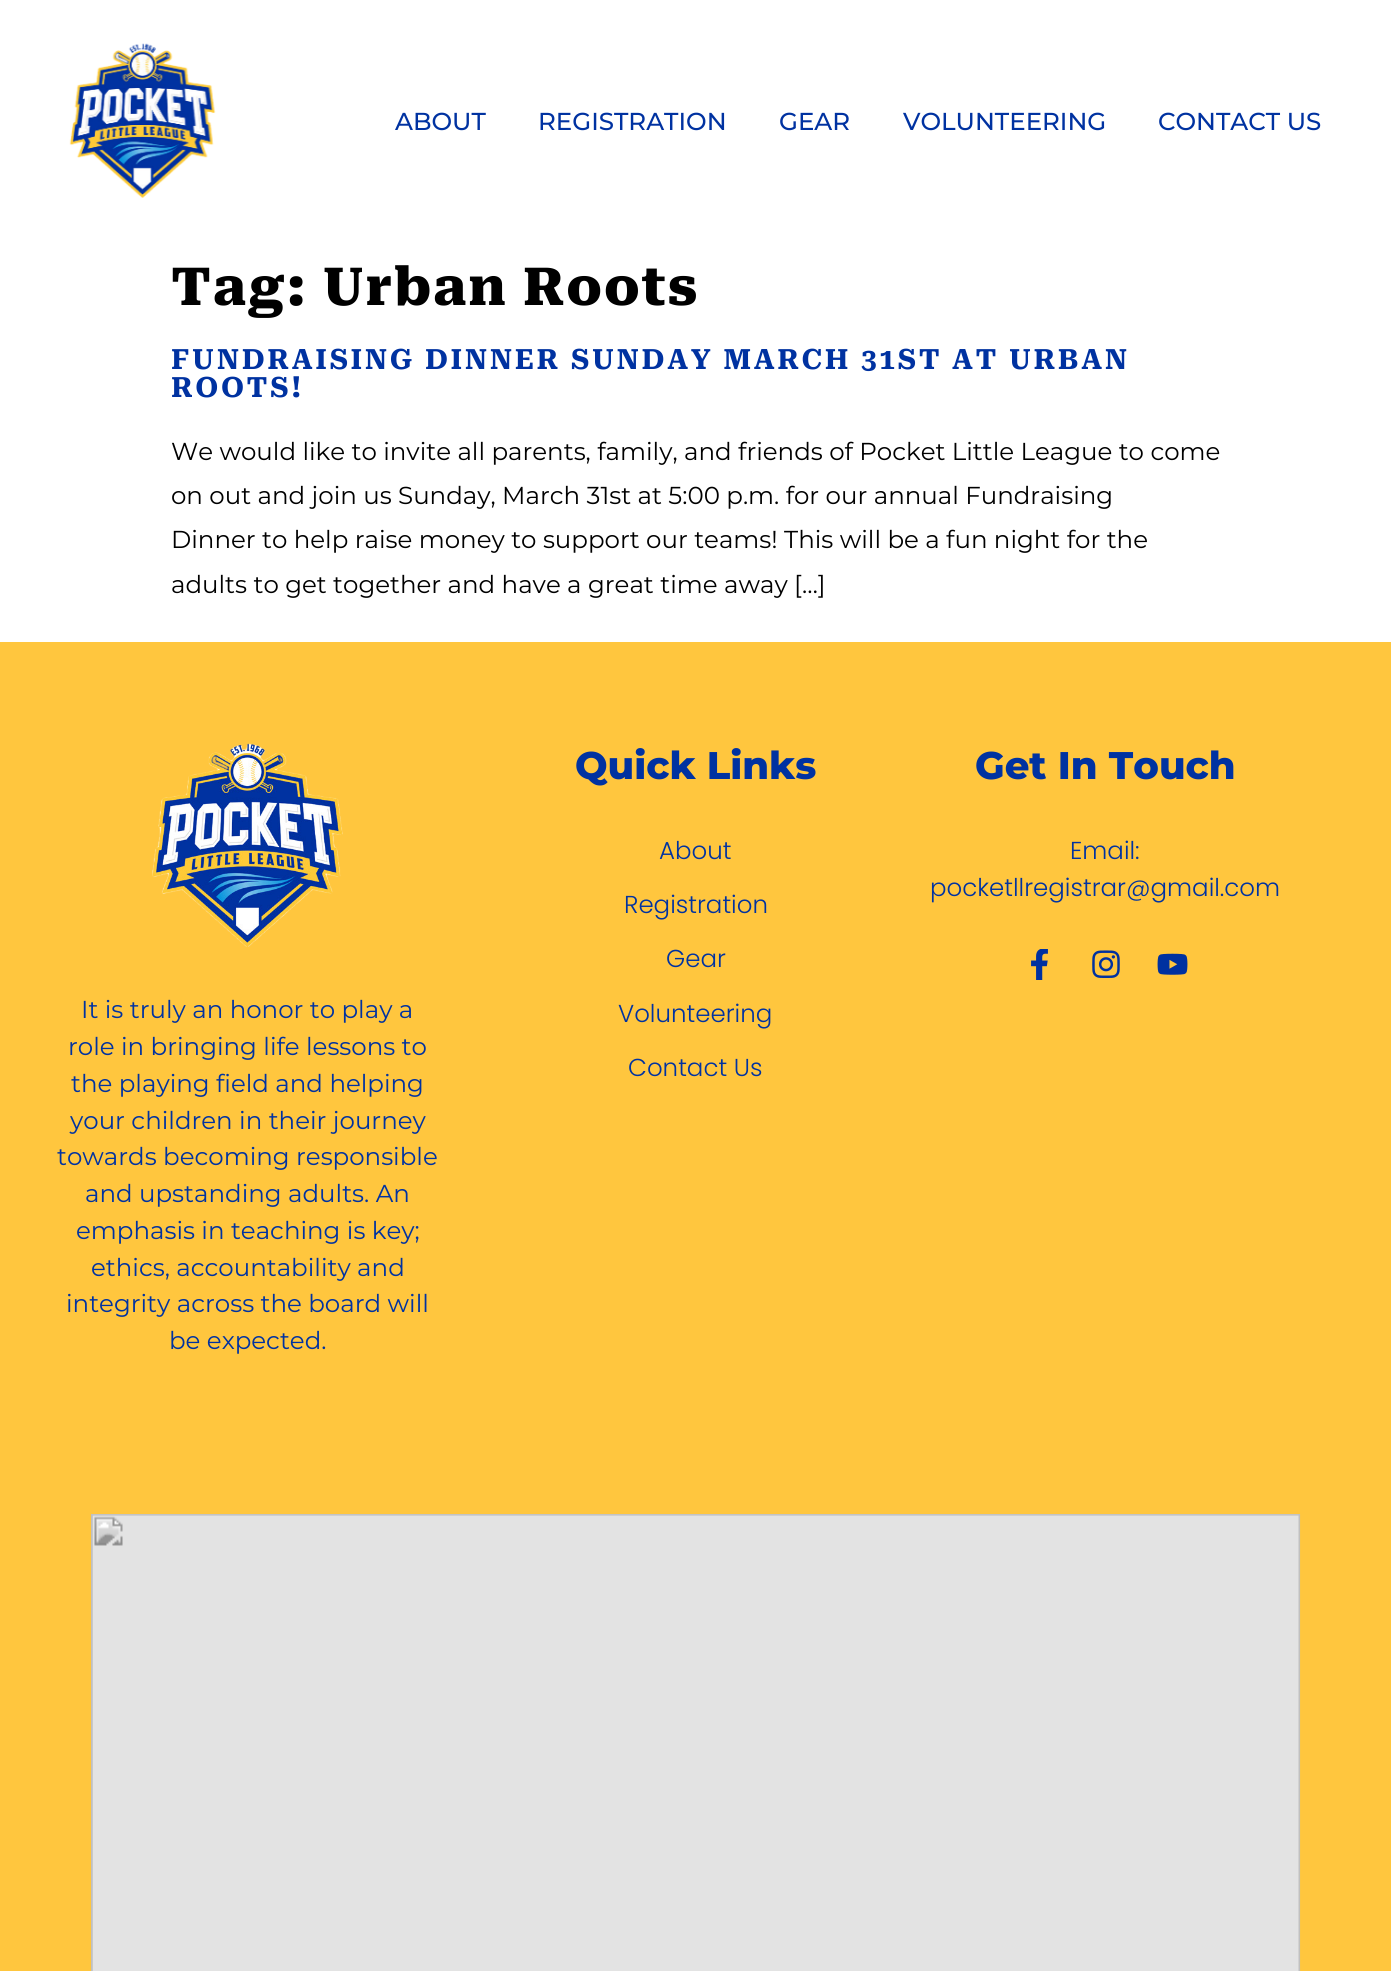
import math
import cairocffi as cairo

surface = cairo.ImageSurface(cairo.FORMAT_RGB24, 1391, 1971)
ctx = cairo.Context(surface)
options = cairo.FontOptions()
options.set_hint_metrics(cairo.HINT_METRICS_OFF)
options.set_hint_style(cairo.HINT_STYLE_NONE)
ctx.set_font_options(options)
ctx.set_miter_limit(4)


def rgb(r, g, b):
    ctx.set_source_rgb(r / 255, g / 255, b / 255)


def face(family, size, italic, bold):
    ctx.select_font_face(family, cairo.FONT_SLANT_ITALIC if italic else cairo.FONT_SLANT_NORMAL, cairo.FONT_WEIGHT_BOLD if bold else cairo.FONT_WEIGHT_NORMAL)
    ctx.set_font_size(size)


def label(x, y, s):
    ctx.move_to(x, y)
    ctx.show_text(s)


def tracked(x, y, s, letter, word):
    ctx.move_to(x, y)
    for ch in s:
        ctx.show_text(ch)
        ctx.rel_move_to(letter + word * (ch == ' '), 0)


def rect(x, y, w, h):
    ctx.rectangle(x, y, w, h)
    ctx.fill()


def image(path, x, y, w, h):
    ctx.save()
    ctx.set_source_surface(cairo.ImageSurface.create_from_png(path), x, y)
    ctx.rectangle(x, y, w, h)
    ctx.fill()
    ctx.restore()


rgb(255, 255, 255)
ctx.paint()
image('image0.png', 69, 43, 147, 155)
face('Montserrat Medium', 24.5, 0, 0)
rgb(0, 50, 161)
label(395, 130, 'ABOUT')
label(538, 130, 'REGISTRATION')
label(779, 130, 'GEAR')
label(903, 130, 'VOLUNTEERING')
label(1158, 130, 'CONTACT US')
face('Roboto Serif ExtraBold', 52.5, 0, 0)
rgb(0, 0, 0)
tracked(171, 305, 'Tag: Urban Roots', 1.75, 0)
face('Roboto Serif', 28, 0, 1)
rgb(0, 50, 161)
tracked(171, 369, 'FUNDRAISING DINNER SUNDAY MARCH 31ST AT URBAN', 2.6, 0)
tracked(171, 397, 'ROOTS!', 2.6, 0)
face('Montserrat', 24.5, 0, 0)
rgb(0, 0, 0)
label(171, 460, 'We would like to invite all parents, family, and friends of Pocket Little League to come')
label(171, 504, 'on out and join us Sunday, March 31st at 5:00 p.m. for our annual Fundraising')
label(171, 548, 'Dinner to help raise money to support our teams! This will be a fun night for the')
label(171, 593, 'adults to get together and have a great time away […]')
rgb(255, 198, 62)
rect(0, 642, 1391, 1329)
face('Montserrat ExtraBold', 38.5, 0, 0)
rgb(0, 50, 161)
label(575, 779, 'Quick Links')
face('Poppins Light', 24.5, 0, 0)
label(659, 859, 'About')
label(624, 913, 'Registration')
label(666, 967, 'Gear')
label(618, 1022, 'Volunteering')
label(628, 1076, 'Contact Us')
face('Montserrat ExtraBold', 38.5, 0, 0)
label(975, 779, 'Get In Touch')
face('Poppins Light', 24.5, 0, 0)
label(1070, 859, 'Email:')
label(930, 896, 'pocketllregistrar@gmail.com')
image('image1.png', 1031, 949, 17, 31)
image('image2.png', 1092, 950, 28, 28)
image('image3.png', 1157, 953, 31, 22)
image('image4.png', 152, 743, 191, 204)
face('Montserrat', 24.5, 0, 0)
label(81, 1018, 'It is truly an honor to play a')
label(68, 1055, 'role in bringing life lessons to')
label(71, 1092, 'the playing field and helping')
label(70, 1129, 'your children in their journey')
label(57, 1165, 'towards becoming responsible')
label(85, 1202, 'and upstanding adults. An')
label(76, 1239, 'emphasis in teaching is key;')
label(91, 1276, 'ethics, accountability and')
label(66, 1312, 'integrity across the board will')
label(169, 1349, 'be expected.')
image('image5.png', 91, 1514, 1210, 457)
surface.write_to_png('render.png')
